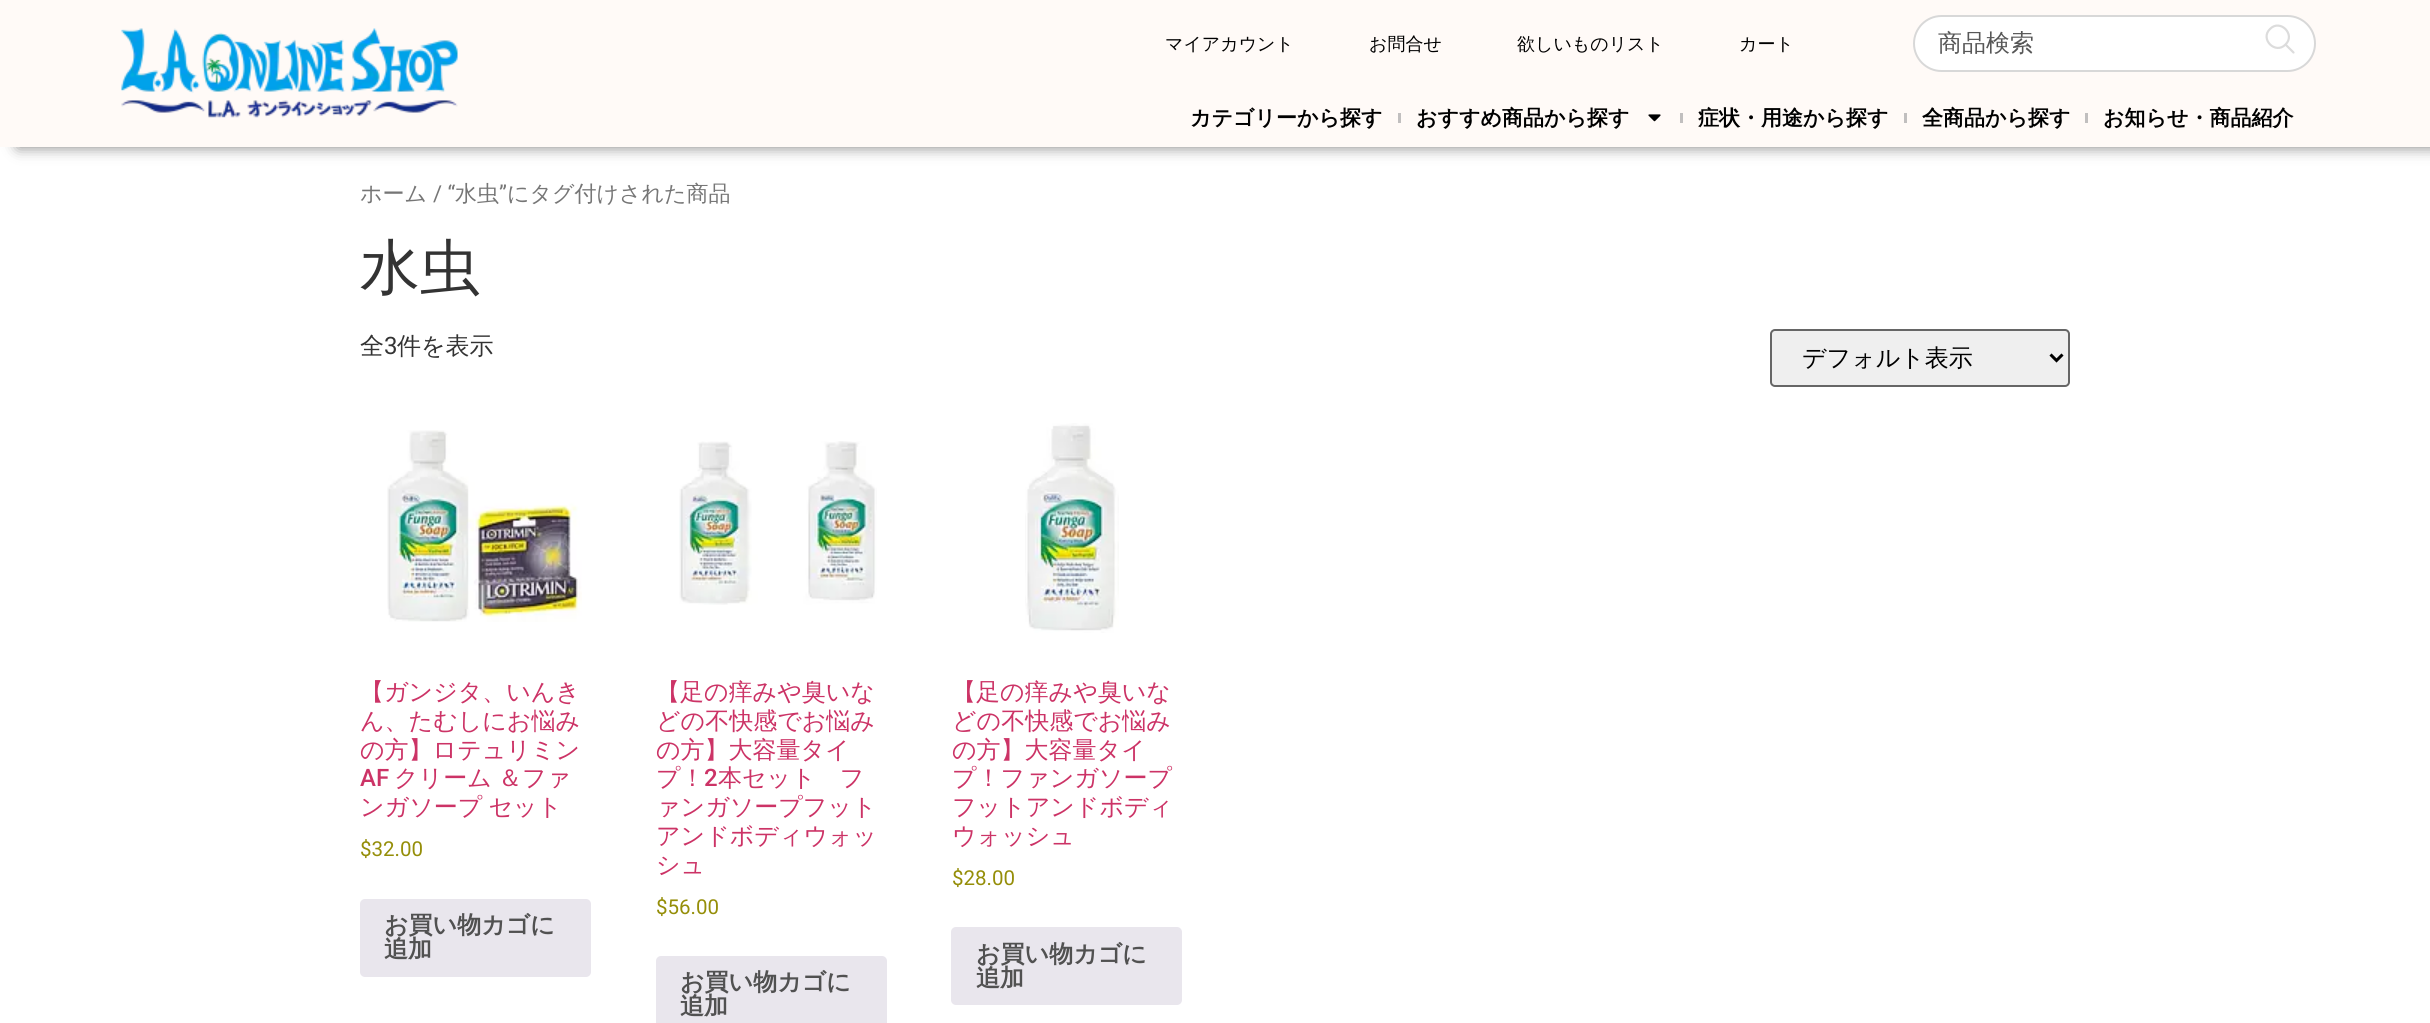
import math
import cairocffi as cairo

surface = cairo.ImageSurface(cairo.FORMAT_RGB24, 2430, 1023)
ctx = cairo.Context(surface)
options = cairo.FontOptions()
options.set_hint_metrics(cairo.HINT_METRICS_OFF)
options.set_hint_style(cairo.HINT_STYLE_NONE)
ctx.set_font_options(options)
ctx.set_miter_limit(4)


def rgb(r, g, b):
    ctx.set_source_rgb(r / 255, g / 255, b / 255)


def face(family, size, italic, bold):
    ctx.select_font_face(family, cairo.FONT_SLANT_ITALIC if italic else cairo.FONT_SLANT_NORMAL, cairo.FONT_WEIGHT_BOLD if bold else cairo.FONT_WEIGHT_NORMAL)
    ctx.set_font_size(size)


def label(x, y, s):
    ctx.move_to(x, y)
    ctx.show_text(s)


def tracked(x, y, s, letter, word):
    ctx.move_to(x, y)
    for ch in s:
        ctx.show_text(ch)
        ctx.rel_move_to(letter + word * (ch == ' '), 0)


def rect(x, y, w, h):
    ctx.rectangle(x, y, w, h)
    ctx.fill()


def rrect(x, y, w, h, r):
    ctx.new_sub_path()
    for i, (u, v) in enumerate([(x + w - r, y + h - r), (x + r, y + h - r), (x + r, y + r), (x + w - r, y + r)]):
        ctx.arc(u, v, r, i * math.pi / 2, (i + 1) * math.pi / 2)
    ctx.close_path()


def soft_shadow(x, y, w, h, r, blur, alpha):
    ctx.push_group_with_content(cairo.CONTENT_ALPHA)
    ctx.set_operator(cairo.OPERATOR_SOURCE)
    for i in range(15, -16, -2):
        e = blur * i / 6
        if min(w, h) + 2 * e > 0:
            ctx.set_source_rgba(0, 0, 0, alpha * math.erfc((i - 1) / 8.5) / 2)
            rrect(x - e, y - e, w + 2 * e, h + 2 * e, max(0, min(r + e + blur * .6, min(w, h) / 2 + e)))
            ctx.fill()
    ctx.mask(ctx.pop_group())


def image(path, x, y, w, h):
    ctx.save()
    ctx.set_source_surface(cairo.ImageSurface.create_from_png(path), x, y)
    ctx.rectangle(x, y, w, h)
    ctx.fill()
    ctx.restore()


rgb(255, 255, 255)
ctx.paint()
rgb(0, 0, 0)
soft_shadow(18, 0, 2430, 147, 0, 7.5, 0.5)
rgb(255, 250, 247)
rect(0, 0, 2430, 147)
image('image0.png', 121, 28, 337, 90)
face('WenQuanYi Zen Hei Medium', 18, 0, 0)
rgb(0, 0, 0)
label(1165, 50, 'マイアカウント')
label(1369, 50, 'お問合せ')
label(1517, 50, '欲しいものリスト')
label(1739, 50, 'カート')
rgb(255, 255, 255)
rrect(1914, 16, 401, 55, 27.5)
ctx.fill_preserve()
rgb(216, 216, 216)
ctx.stroke()
face('WenQuanYi Zen Hei Medium', 24, 0, 0)
rgb(87, 87, 87)
label(1938, 51, '商品検索')
ctx.new_path()
ctx.move_to(2293.5, 52.5)
ctx.line_to(2285.5, 44.5)
ctx.move_to(2285.5, 44.5)
ctx.curve_to(2296, 34.5, 2280, 18.5, 2270, 29)
ctx.curve_to(2259.5, 39, 2275.5, 55, 2285.5, 44.5)
ctx.close_path()
rgb(220, 220, 220)
ctx.set_line_width(2.2)
ctx.set_line_cap(cairo.LINE_CAP_ROUND)
ctx.set_line_join(cairo.LINE_JOIN_ROUND)
ctx.stroke()
face('WenQuanYi Zen Hei', 21, 0, 1)
rgb(0, 0, 0)
label(1190, 125, 'カテゴリーから探す')
rgb(193, 191, 191)
rect(1398, 113, 3, 10)
rgb(0, 0, 0)
label(1416, 125, 'おすすめ商品から探す')
image('image1.png', 1648, 114, 13, 8)
rgb(193, 191, 191)
rect(1680, 113, 3, 10)
rgb(0, 0, 0)
label(1698, 125, '症状・用途から探す')
rgb(193, 191, 191)
rect(1904, 113, 3, 10)
rgb(0, 0, 0)
label(1922, 125, '全商品から探す')
rgb(193, 191, 191)
rect(2085, 113, 3, 10)
rgb(0, 0, 0)
label(2103, 125, 'お知らせ・商品紹介')
face('WenQuanYi Zen Hei Medium', 22, 0, 0)
rgb(118, 118, 118)
label(360, 201, 'ホーム')
face('Roboto', 22, 0, 0)
label(433, 201, '/ “')
face('WenQuanYi Zen Hei Medium', 22, 0, 0)
label(455, 201, '水虫')
face('Roboto', 22, 0, 0)
label(499, 201, '”')
face('WenQuanYi Zen Hei Medium', 22, 0, 0)
label(507, 201, 'にタグ付けされた商品')
face('WenQuanYi Zen Hei Medium', 60, 0, 0)
rgb(51, 51, 51)
label(360, 288, '水虫')
face('WenQuanYi Zen Hei Medium', 24, 0, 0)
label(360, 354, '全')
face('Roboto', 24, 0, 0)
label(384, 354, '3')
face('WenQuanYi Zen Hei Medium', 24, 0, 0)
label(397, 354, '件を表示')
rgb(239, 239, 239)
rrect(1771, 330, 298, 56, 4)
ctx.fill_preserve()
rgb(102, 102, 102)
ctx.set_line_width(2)
ctx.set_line_cap(cairo.LINE_CAP_BUTT)
ctx.set_line_join(cairo.LINE_JOIN_MITER)
ctx.stroke()
ctx.new_path()
ctx.move_to(2050.5, 354.5)
ctx.line_to(2056.5, 360.5)
ctx.line_to(2062.5, 354.5)
rgb(0, 0, 0)
ctx.set_line_width(3)
ctx.stroke()
label(1802, 366, 'デフォルト表示')
image('image2.png', 387, 430, 195, 192)
rgb(204, 51, 102)
label(360, 700, '【ガンジタ、いんき')
label(360, 729, 'ん、たむしにお悩み')
label(360, 758, 'の方】ロテュリミン')
face('Roboto Medium', 24, 0, 0)
label(360, 786, 'AF')
face('WenQuanYi Zen Hei Medium', 24, 0, 0)
tracked(394, 786, 'クリーム ＆ファ', 0, -1)
tracked(360, 815, 'ンガソープ セット', 0, -1)
face('Roboto', 20.5, 0, 0)
rgb(149, 142, 9)
label(360, 856, '$32.00')
rgb(233, 230, 237)
rrect(360, 899, 231, 78, 5)
ctx.fill()
face('WenQuanYi Zen Hei', 24, 0, 1)
rgb(81, 81, 81)
label(384, 933, 'お買い物カゴに')
label(384, 957, '追加')
image('image3.png', 679, 441, 198, 164)
face('WenQuanYi Zen Hei Medium', 24, 0, 0)
rgb(204, 51, 102)
label(656, 700, '【足の痒みや臭いな')
label(656, 729, 'どの不快感でお悩み')
label(656, 758, 'の方】大容量タイ')
label(656, 786, 'プ！')
face('Roboto Medium', 24, 0, 0)
label(704, 786, '2')
face('WenQuanYi Zen Hei Medium', 24, 0, 0)
label(718, 786, '本セット　フ')
label(656, 815, 'ァンガソープフット')
label(656, 844, 'アンドボディウォッ')
label(656, 873, 'シュ')
face('Roboto', 20.5, 0, 0)
rgb(149, 142, 9)
label(656, 914, '$56.00')
rgb(233, 230, 237)
rrect(656, 956, 231, 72, 5)
ctx.fill()
face('WenQuanYi Zen Hei', 24, 0, 1)
rgb(81, 81, 81)
label(680, 990, 'お買い物カゴに')
label(680, 1014, '追加')
image('image4.png', 1025, 423, 94, 210)
face('WenQuanYi Zen Hei Medium', 24, 0, 0)
rgb(204, 51, 102)
label(952, 700, '【足の痒みや臭いな')
label(952, 729, 'どの不快感でお悩み')
label(952, 758, 'の方】大容量タイ')
label(952, 786, 'プ！ファンガソープ')
label(952, 815, 'フットアンドボディ')
label(952, 844, 'ウォッシュ')
face('Roboto', 20.5, 0, 0)
rgb(149, 142, 9)
label(952, 885, '$28.00')
rgb(233, 230, 237)
rrect(951, 927, 231, 78, 5)
ctx.fill()
face('WenQuanYi Zen Hei', 24, 0, 1)
rgb(81, 81, 81)
label(976, 962, 'お買い物カゴに')
label(976, 986, '追加')
surface.write_to_png('render.png')
